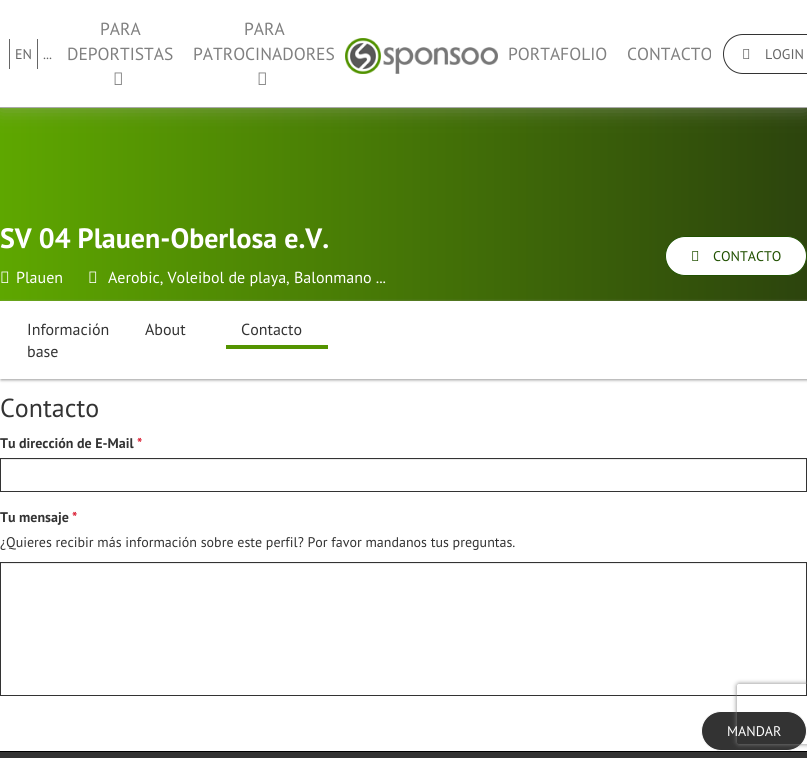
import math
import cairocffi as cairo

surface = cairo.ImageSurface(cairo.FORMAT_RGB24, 807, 758)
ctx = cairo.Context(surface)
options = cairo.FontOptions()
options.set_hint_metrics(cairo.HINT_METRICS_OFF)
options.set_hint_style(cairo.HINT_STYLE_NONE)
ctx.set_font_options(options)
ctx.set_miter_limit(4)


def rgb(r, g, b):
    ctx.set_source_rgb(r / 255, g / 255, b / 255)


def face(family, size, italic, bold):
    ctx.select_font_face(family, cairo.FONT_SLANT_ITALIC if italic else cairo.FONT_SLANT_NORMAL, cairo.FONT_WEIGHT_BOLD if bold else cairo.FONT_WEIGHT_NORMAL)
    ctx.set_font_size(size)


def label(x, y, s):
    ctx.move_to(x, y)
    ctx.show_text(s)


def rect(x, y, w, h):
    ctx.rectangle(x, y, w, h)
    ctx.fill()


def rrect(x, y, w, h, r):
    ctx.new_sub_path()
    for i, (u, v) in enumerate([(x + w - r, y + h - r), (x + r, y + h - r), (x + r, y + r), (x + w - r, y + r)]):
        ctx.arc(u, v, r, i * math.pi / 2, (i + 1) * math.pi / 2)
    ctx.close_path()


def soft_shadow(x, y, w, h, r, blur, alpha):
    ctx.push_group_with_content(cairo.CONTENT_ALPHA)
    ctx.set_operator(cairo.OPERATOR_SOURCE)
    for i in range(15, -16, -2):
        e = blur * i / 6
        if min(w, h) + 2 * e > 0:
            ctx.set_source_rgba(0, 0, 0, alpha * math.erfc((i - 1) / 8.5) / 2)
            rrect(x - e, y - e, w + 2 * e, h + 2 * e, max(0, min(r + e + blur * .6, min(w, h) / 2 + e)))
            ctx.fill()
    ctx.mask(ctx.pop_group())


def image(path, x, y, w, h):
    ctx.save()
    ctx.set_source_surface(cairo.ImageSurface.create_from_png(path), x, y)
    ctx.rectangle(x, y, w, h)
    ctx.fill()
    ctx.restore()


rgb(255, 255, 255)
ctx.paint()
gradient = cairo.LinearGradient(0, 136, 807, 136)
gradient.add_color_stop_rgba(0, 0.369, 0.655, 0, 1)
gradient.add_color_stop_rgba(1, 0.173, 0.267, 0.051, 1)
ctx.set_source(gradient)
rect(0, 108, 807, 103)
rgb(170, 170, 170)
soft_shadow(0, 0, 807, 108, 0, 10, 0.5)
rgb(255, 255, 255)
rect(0, 0, 807, 107)
rgb(170, 170, 170)
rect(0, 107, 807, 1)
rgb(102, 102, 102)
rect(9, 39, 1, 30)
rect(37, 39, 1, 30)
face('PT Sans', 14, 0, 0)
label(15, 59, 'EN')
label(43, 59, '...')
face('PT Sans', 17.5, 0, 0)
rgb(128, 128, 128)
label(100, 35, 'PARA')
label(67, 60, 'DEPORTISTAS')
image('image0.png', 114, 72, 8, 13)
label(244, 35, 'PARA')
label(193, 60, 'PATROCINADORES')
image('image0.png', 258, 72, 8, 13)
image('image1.png', 345, 38, 153, 36)
label(508, 60, 'PORTAFOLIO')
label(627, 60, 'CONTACTO')
ctx.new_path()
ctx.move_to(743, 34.5)
ctx.line_to(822.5, 34.5)
ctx.line_to(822.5, 73.5)
ctx.line_to(743, 73.5)
ctx.curve_to(732, 73.5, 723.5, 65, 723.5, 54)
ctx.curve_to(723.5, 43, 732, 34.5, 743, 34.5)
ctx.close_path()
rgb(51, 51, 51)
ctx.set_line_width(1)
ctx.stroke()
image('image2.png', 743, 49, 7, 10)
face('PT Sans', 14, 0, 0)
rgb(102, 102, 102)
label(765, 59, 'LOGIN')
gradient = cairo.LinearGradient(0, 256, 807, 256)
gradient.add_color_stop_rgba(0, 0.369, 0.655, 0, 1)
gradient.add_color_stop_rgba(1, 0.173, 0.267, 0.051, 1)
ctx.set_source(gradient)
rect(0, 211, 807, 90)
face('PT Sans', 28, 0, 1)
rgb(255, 255, 255)
label(0, 248, 'SV 04 Plauen-Oberlosa e.V.')
image('image3.png', 1, 271, 8, 12)
face('PT Sans', 16, 0, 0)
label(16, 283, 'Plauen')
image('image4.png', 89, 271, 8, 12)
label(108, 283, 'Aerobic, Voleibol de playa, Balonmano ...')
rrect(665.5, 236.5, 141, 39, 19.5)
ctx.fill_preserve()
rgb(32, 80, 0)
ctx.stroke()
image('image5.png', 692, 251, 7, 10)
face('PT Sans', 14, 0, 0)
label(713, 261, 'CONTACTO')
ctx.save()
ctx.set_fill_rule(cairo.FILL_RULE_EVEN_ODD)
ctx.new_path()
ctx.move_to(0, 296)
ctx.line_to(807, 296)
ctx.line_to(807, 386)
ctx.line_to(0, 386)
ctx.close_path()
ctx.move_to(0, 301)
ctx.line_to(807, 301)
ctx.line_to(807, 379)
ctx.line_to(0, 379)
ctx.close_path()
ctx.clip()
rgb(153, 153, 153)
soft_shadow(1, 302, 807, 78, 0, 1.5, 1)
ctx.restore()
face('PT Sans', 16, 0, 0)
rgb(51, 51, 51)
label(27, 335, 'Información')
label(27, 357, 'base')
label(145, 335, 'About')
rgb(84, 148, 0)
rect(226, 345, 102, 4)
rgb(51, 51, 51)
label(241, 335, 'Contacto')
face('PT Sans', 26, 0, 0)
label(0, 417, 'Contacto')
face('PT Sans', 14, 0, 1)
label(0, 448, 'Tu dirección de E-Mail')
rgb(217, 24, 45)
label(137, 448, '*')
rgb(236, 236, 236)
rect(1, 459, 805, 1)
ctx.rectangle(0.5, 458.5, 806, 33)
rgb(51, 51, 51)
ctx.stroke()
label(0, 522, 'Tu mensaje')
rgb(217, 24, 45)
label(72, 522, '*')
face('PT Sans', 14, 0, 0)
rgb(51, 51, 51)
label(0, 547, '¿Quieres recibir más información sobre este perfil? Por favor mandanos tus preguntas.')
rgb(236, 236, 236)
rect(1, 563, 805, 1)
ctx.rectangle(0.5, 562.5, 806, 133)
rgb(51, 51, 51)
ctx.stroke()
rrect(701.5, 711.5, 105, 39, 19.5)
ctx.fill_preserve()
rgb(255, 255, 255)
ctx.stroke()
rgb(51, 51, 51)
rect(0, 752, 807, 6)
rgb(0, 0, 0)
rect(0, 751, 807, 1)
ctx.save()
ctx.set_fill_rule(cairo.FILL_RULE_EVEN_ODD)
ctx.new_path()
ctx.move_to(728, 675)
ctx.line_to(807, 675)
ctx.line_to(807, 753)
ctx.line_to(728, 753)
ctx.close_path()
ctx.move_to(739, 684)
ctx.line_to(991, 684)
ctx.curve_to(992, 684, 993, 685, 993, 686)
ctx.line_to(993, 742)
ctx.curve_to(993, 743, 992, 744, 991, 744)
ctx.line_to(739, 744)
ctx.curve_to(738, 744, 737, 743, 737, 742)
ctx.line_to(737, 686)
ctx.curve_to(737, 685, 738, 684, 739, 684)
ctx.close_path()
ctx.clip()
rgb(128, 128, 128)
soft_shadow(737, 684, 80, 60, 2, 2.5, 1)
ctx.restore()
rgb(255, 255, 255)
label(727, 736, 'MANDAR')
surface.write_to_png('render.png')
